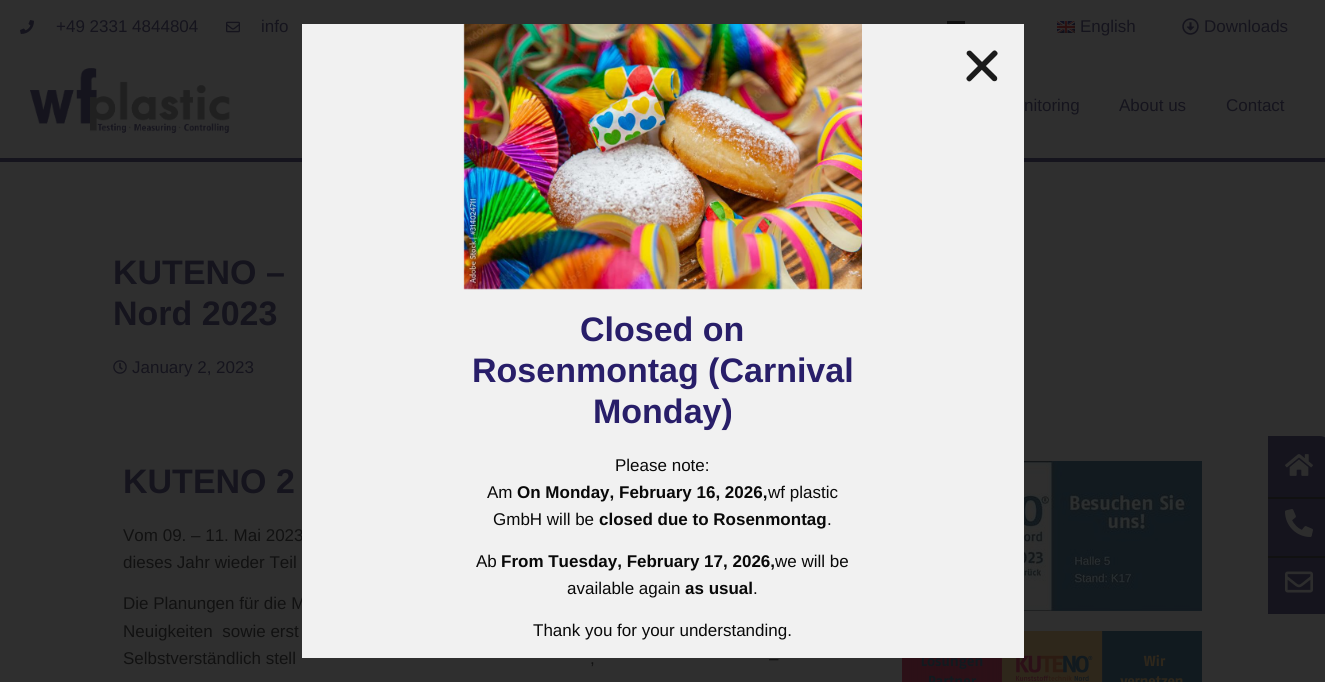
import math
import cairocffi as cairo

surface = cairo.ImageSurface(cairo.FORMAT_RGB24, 1325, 682)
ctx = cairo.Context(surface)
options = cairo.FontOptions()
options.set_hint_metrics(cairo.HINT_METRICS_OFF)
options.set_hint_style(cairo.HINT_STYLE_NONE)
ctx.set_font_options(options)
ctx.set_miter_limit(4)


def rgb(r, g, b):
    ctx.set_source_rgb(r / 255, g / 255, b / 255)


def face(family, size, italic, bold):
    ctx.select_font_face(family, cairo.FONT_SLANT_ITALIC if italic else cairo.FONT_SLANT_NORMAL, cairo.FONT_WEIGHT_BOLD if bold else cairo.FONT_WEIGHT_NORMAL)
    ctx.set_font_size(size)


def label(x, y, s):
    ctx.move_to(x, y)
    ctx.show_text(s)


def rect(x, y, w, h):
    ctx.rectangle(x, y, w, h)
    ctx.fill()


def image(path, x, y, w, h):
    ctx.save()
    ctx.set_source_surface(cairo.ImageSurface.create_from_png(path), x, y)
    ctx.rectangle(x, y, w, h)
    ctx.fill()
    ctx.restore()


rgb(47, 47, 47)
ctx.paint()
image('image0.png', 20, 20, 14, 14)
face('Liberation Sans', 17, 0, 0)
rgb(21, 20, 29)
label(56, 32, '+49 2331 4844804')
image('image1.png', 226, 21, 14, 12)
label(261, 32, 'info')
image('image2.png', 947, 21, 18, 3)
image('image3.png', 1057, 21, 18, 12)
label(1080, 32, 'English')
image('image4.png', 1182, 18, 17, 17)
label(1204, 32, 'Downloads')
rect(0, 158, 1325, 4)
image('image5.png', 30, 68, 200, 66)
label(1024, 111, 'nitoring')
label(1119, 111, 'About us')
label(1226, 111, 'Contact')
ctx.new_path()
ctx.move_to(1268, 436)
ctx.line_to(1320, 436)
ctx.curve_to(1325.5, 436, 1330, 440.5, 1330, 446)
ctx.line_to(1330, 497)
ctx.line_to(1268, 497)
ctx.close_path()
ctx.fill()
image('image6.png', 1285, 454, 28, 22)
rect(1268, 499, 57, 57)
rgb(17, 17, 17)
rect(1268, 497, 57, 2)
image('image7.png', 1285, 509, 28, 28)
rgb(21, 20, 29)
rect(1268, 558, 57, 56)
rgb(17, 17, 17)
rect(1268, 556, 57, 2)
image('image8.png', 1285, 571, 28, 22)
face('Liberation Sans', 34, 0, 1)
rgb(21, 20, 29)
label(113, 284, 'KUTENO –')
label(113, 325, 'Nord 2023')
image('image9.png', 113, 360, 14, 14)
face('Liberation Sans', 17, 0, 0)
label(132, 373, 'January 2, 2023')
face('Liberation Sans', 34, 0, 1)
label(123, 493, 'KUTENO 2')
face('Liberation Sans', 17, 0, 0)
rgb(17, 17, 17)
label(123, 541, 'Vom 09. – 11. Mai 2023')
label(123, 568, 'dieses Jahr wieder Teil')
label(123, 609, 'Die Planungen für die M')
label(123, 637, 'Neuigkeiten  sowie erst')
label(123, 664, 'Selbstverständlich stell')
label(769, 664, '–')
label(590, 664, ',')
image('image10.png', 1024, 461, 178, 150)
image('image11.png', 902, 631, 300, 51)
rgb(241, 241, 241)
rect(302, 24, 722, 634)
image('image12.png', 966, 50, 32, 32)
image('image13.png', 463, 24, 399, 266)
face('Liberation Sans', 34, 0, 1)
rgb(40, 30, 105)
label(580, 341, 'Closed on')
label(472, 382, 'Rosenmontag (Carnival')
label(593, 423, 'Monday)')
face('Liberation Sans', 17, 0, 0)
rgb(9, 9, 9)
label(615, 471, 'Please note:')
label(487, 498, 'Am')
face('Liberation Sans', 17, 0, 1)
label(517, 498, 'On Monday, February 16, 2026,')
face('Liberation Sans', 17, 0, 0)
label(768, 498, 'wf plastic')
label(493, 525, 'GmbH will be')
face('Liberation Sans', 17, 0, 1)
label(599, 525, 'closed due to Rosenmontag')
face('Liberation Sans', 17, 0, 0)
label(827, 525, '.')
label(476, 567, 'Ab')
face('Liberation Sans', 17, 0, 1)
label(501, 567, 'From Tuesday, February 17, 2026,')
face('Liberation Sans', 17, 0, 0)
label(775, 567, 'we will be')
label(567, 594, 'available again')
face('Liberation Sans', 17, 0, 1)
label(685, 594, 'as usual')
face('Liberation Sans', 17, 0, 0)
label(753, 594, '.')
label(533, 636, 'Thank you for your understanding.')
surface.write_to_png('render.png')
